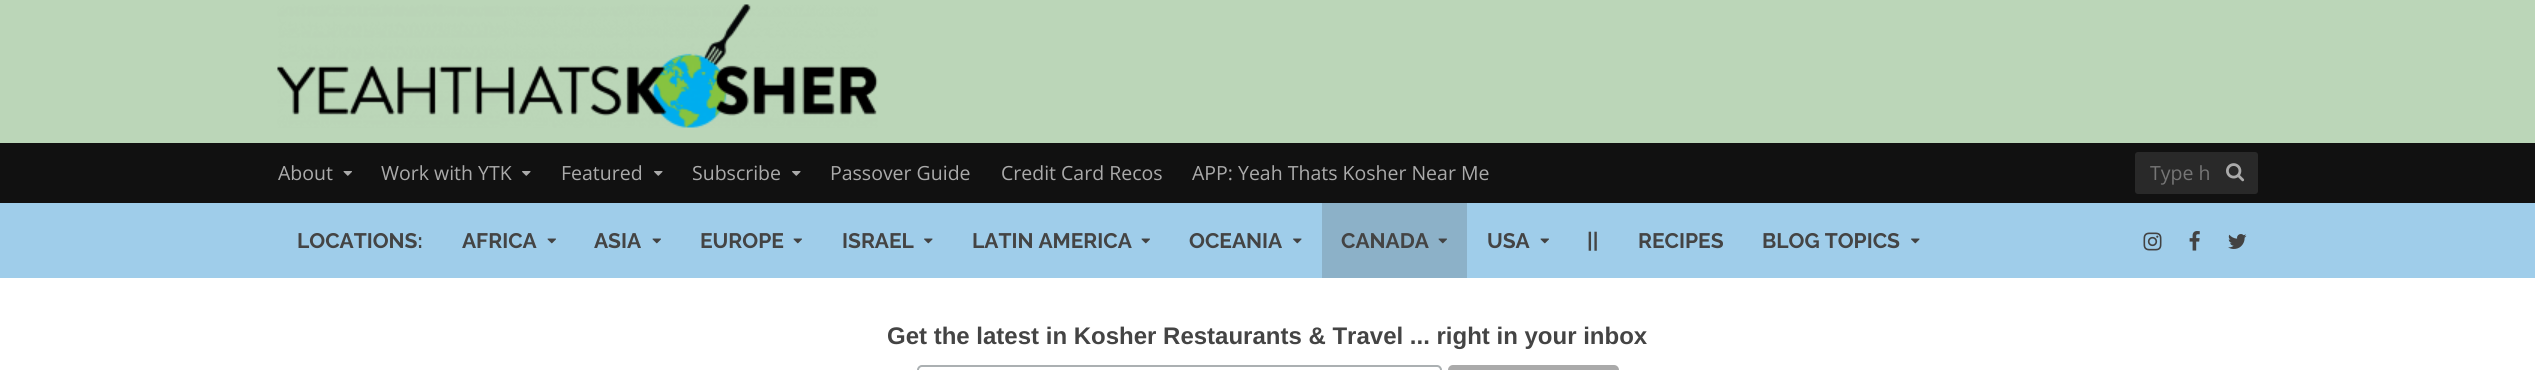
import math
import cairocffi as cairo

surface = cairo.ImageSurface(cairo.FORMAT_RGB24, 2535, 370)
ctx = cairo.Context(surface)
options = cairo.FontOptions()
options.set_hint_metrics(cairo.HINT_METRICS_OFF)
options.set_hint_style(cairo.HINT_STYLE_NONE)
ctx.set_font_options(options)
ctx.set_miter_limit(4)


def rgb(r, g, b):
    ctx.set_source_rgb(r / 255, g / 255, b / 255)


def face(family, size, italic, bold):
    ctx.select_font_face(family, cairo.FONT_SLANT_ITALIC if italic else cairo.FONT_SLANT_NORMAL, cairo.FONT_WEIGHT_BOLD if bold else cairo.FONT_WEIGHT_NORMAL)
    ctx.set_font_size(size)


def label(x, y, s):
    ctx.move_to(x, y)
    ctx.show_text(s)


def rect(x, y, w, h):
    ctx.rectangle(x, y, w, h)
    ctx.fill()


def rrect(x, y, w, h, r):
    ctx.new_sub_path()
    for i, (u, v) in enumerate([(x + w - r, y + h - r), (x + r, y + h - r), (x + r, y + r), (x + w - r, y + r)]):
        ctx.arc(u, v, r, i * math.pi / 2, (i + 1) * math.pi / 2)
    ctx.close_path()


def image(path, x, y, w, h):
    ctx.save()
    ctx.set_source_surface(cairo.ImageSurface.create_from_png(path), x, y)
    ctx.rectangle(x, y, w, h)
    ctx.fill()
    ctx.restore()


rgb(255, 255, 255)
ctx.paint()
rgb(187, 214, 184)
rect(0, 0, 2535, 143)
image('image0.png', 277, 4, 601, 124)
rgb(17, 17, 17)
rect(0, 143, 2535, 60)
face('Open Sans', 19.5, 0, 0)
rgb(170, 170, 170)
label(278, 180, 'About')
image('image1.png', 343, 171, 9, 5)
label(381, 180, 'Work with YTK')
image('image2.png', 522, 171, 9, 5)
label(561, 180, 'Featured')
image('image2.png', 654, 171, 9, 5)
label(692, 180, 'Subscribe')
image('image2.png', 792, 171, 9, 5)
label(830, 180, 'Passover Guide')
label(1001, 180, 'Credit Card Recos')
label(1192, 180, 'APP: Yeah Thats Kosher Near Me')
rgb(41, 41, 41)
rrect(2135, 152, 123, 42, 3)
ctx.fill()
rgb(117, 117, 117)
label(2150, 180, 'Type h')
image('image3.png', 2226, 163, 19, 19)
rgb(159, 205, 234)
rect(0, 203, 2535, 75)
face('Raleway', 21, 0, 1)
rgb(68, 68, 68)
label(297, 248, 'LOCATIONS:')
label(462, 248, 'AFRICA')
image('image4.png', 547, 238, 9, 6)
label(594, 248, 'ASIA')
image('image4.png', 652, 238, 9, 6)
label(700, 248, 'EUROPE')
image('image4.png', 793, 238, 9, 6)
label(842, 248, 'ISRAEL')
image('image5.png', 924, 238, 9, 6)
label(972, 248, 'LATIN AMERICA')
image('image4.png', 1141, 238, 9, 6)
label(1189, 248, 'OCEANIA')
image('image5.png', 1293, 238, 9, 6)
rgb(140, 177, 200)
rect(1322, 203, 145, 75)
rgb(68, 68, 68)
label(1341, 248, 'CANADA')
image('image6.png', 1438, 238, 9, 6)
label(1487, 248, 'USA')
image('image4.png', 1540, 238, 9, 6)
label(1587, 248, '||')
label(1638, 248, 'RECIPES')
label(1762, 248, 'BLOG TOPICS')
image('image5.png', 1911, 238, 9, 6)
image('image7.png', 2143, 232, 19, 19)
image('image8.png', 2189, 231, 11, 20)
image('image9.png', 2228, 234, 19, 15)
face('Liberation Sans', 24, 0, 1)
label(887, 344, 'Get the latest in Kosher Restaurants & Travel ... right in your inbox')
rrect(918, 366, 523, 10, 4)
rgb(171, 176, 178)
ctx.stroke()
rgb(170, 170, 170)
rrect(1448, 365, 171, 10, 5)
ctx.fill()
surface.write_to_png('render.png')
